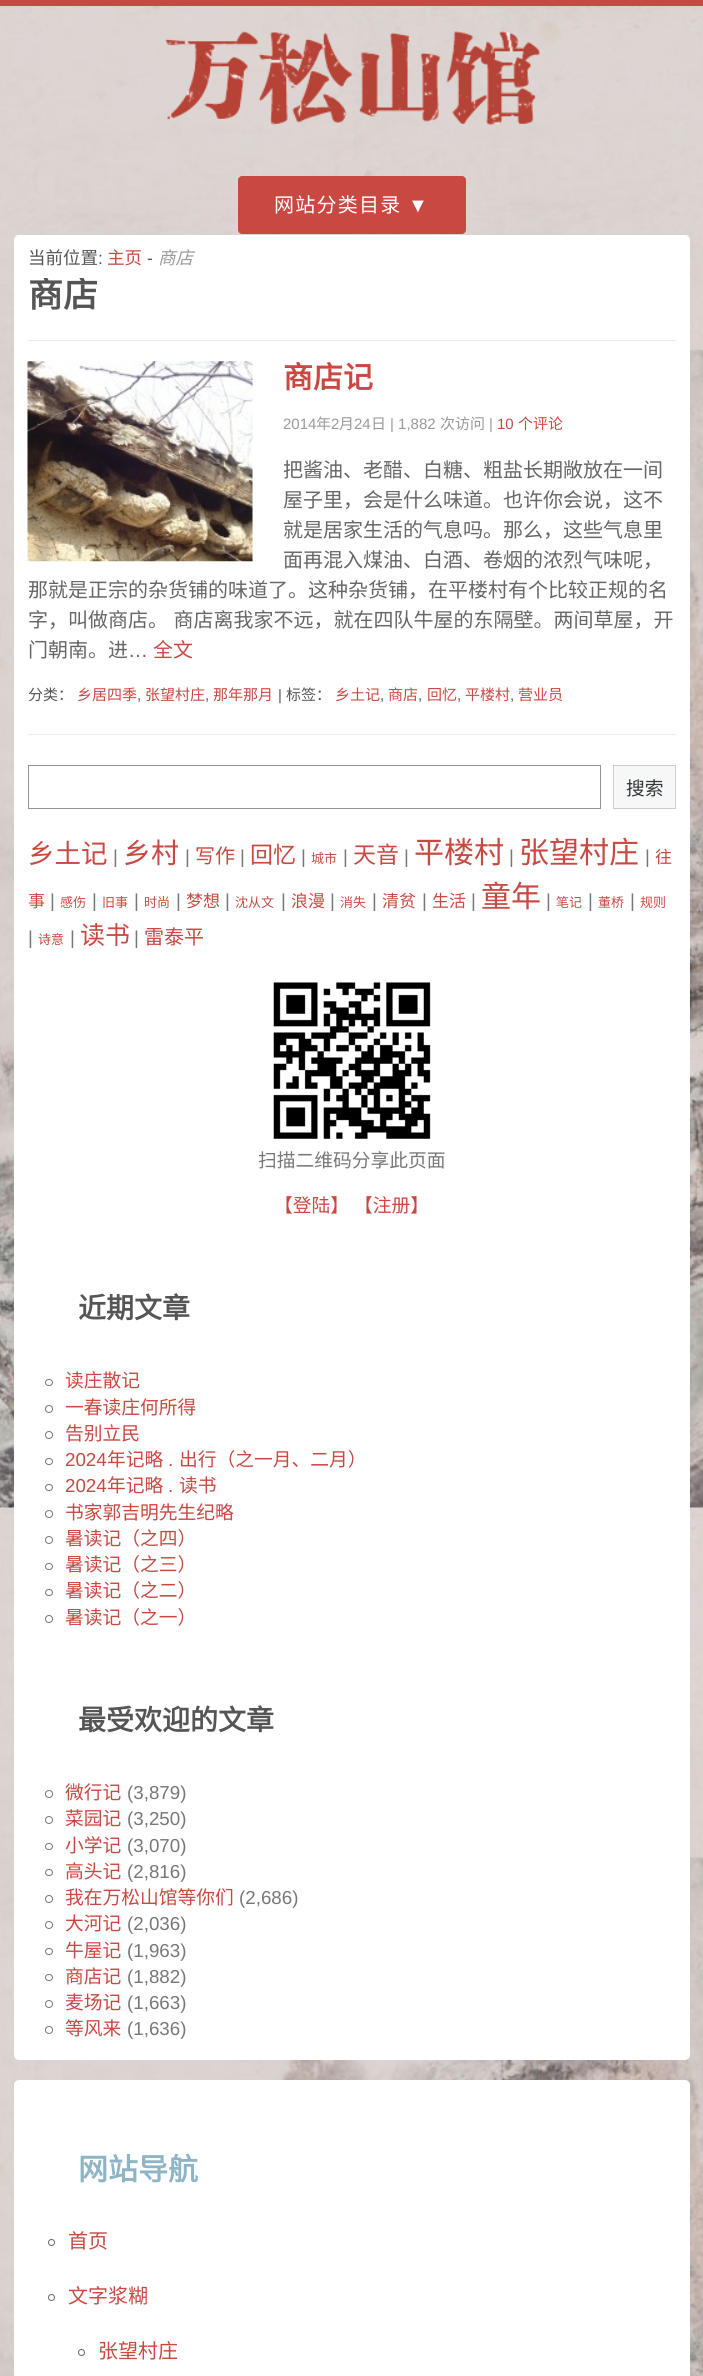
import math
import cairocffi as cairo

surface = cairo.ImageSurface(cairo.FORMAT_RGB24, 703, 2376)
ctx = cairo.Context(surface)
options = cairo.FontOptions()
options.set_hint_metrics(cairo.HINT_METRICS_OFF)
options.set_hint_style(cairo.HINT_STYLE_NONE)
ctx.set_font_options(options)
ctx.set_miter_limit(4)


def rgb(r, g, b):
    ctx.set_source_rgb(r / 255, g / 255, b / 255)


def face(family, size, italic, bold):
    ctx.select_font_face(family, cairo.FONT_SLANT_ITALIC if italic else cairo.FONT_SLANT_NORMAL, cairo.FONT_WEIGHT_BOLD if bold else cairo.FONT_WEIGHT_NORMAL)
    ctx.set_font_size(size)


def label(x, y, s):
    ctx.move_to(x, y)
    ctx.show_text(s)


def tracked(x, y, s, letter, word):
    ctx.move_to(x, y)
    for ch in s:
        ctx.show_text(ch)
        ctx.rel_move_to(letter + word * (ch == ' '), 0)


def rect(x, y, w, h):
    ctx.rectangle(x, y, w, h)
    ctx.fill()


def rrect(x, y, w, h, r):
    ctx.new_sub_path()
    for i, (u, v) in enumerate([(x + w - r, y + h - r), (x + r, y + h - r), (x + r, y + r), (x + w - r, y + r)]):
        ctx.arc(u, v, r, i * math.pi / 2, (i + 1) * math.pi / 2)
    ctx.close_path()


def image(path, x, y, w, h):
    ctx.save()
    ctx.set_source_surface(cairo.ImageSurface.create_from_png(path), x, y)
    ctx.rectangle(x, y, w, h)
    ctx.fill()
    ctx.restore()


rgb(255, 255, 255)
ctx.paint()
image('image0.png', 0, 6, 703, 2370)
rgb(202, 72, 66)
rect(0, 0, 703, 6)
image('image1.png', 165, 31, 375, 95)
ctx.new_path()
ctx.move_to(242, 176)
ctx.line_to(401, 176)
ctx.line_to(401, 234)
ctx.line_to(242, 234)
ctx.curve_to(240, 234, 238, 232, 238, 230)
ctx.line_to(238, 180)
ctx.curve_to(238, 178, 240, 176, 242, 176)
ctx.close_path()
ctx.fill()
face('Noto Sans CJK SC', 20, 0, 0)
rgb(255, 255, 255)
tracked(274, 212, '网站分类目录', 1.25, 0)
rgb(202, 72, 66)
ctx.new_path()
ctx.move_to(401, 176)
ctx.line_to(462, 176)
ctx.curve_to(464, 176, 466, 178, 466, 180)
ctx.line_to(466, 230)
ctx.curve_to(466, 232, 464, 234, 462, 234)
ctx.line_to(401, 234)
ctx.close_path()
ctx.fill()
face('Liberation Sans', 20, 0, 0)
rgb(255, 255, 255)
tracked(408, 212, '▼', 1.25, 0)
rrect(14, 235, 676, 1825, 5)
ctx.fill()
face('Noto Sans CJK SC', 17.5, 0, 0)
rgb(85, 85, 85)
label(28, 264, '当前位置')
face('Liberation Sans', 17.5, 0, 0)
label(98, 264, ':')
face('Noto Sans CJK SC', 17.5, 0, 0)
rgb(202, 72, 66)
label(107, 264, '主页')
face('Liberation Sans', 17.5, 0, 0)
rgb(85, 85, 85)
label(147, 264, '-')
face('Noto Sans CJK SC', 17.5, 1, 0)
rgb(153, 153, 153)
label(158, 264, '商店')
rgb(233, 237, 241)
rect(28, 340, 648, 1)
ctx.save()
ctx.rectangle(28, 278, 648, 62)
ctx.clip()
face('Noto Sans CJK SC', 35, 0, 1)
rgb(85, 85, 85)
label(28, 307, '商店')
ctx.restore()
rect(28, 734, 648, 1)
image('image2.png', 27, 361, 226, 201)
face('Noto Sans CJK SC', 30, 0, 1)
rgb(202, 72, 66)
label(283, 388, '商店记')
face('Liberation Sans', 15, 0, 0)
rgb(153, 153, 153)
label(283, 429, '2014')
face('Noto Sans CJK SC', 15, 0, 0)
label(316, 429, '年')
face('Liberation Sans', 15, 0, 0)
label(331, 429, '2')
face('Noto Sans CJK SC', 15, 0, 0)
label(339, 429, '月')
face('Liberation Sans', 15, 0, 0)
label(354, 429, '24')
face('Noto Sans CJK SC', 15, 0, 0)
label(371, 429, '日')
face('Liberation Sans', 15, 0, 0)
label(390, 429, '| 1,882')
face('Noto Sans CJK SC', 15, 0, 0)
label(440, 429, '次访问')
face('Liberation Sans', 15, 0, 0)
label(489, 429, '|')
rgb(202, 72, 66)
label(497, 429, '10')
face('Noto Sans CJK SC', 15, 0, 0)
label(518, 429, '个评论')
face('Noto Sans CJK SC', 20, 0, 0)
rgb(102, 102, 102)
label(283, 477, '把酱油、老醋、白糖、粗盐长期敞放在一间')
label(283, 507, '屋子里，会是什么味道。也许你会说，这不')
label(283, 537, '就是居家生活的气息吗。那么，这些气息里')
label(283, 567, '面再混入煤油、白酒、卷烟的浓烈气味呢，')
label(28, 597, '那就是正宗的杂货铺的味道了。这种杂货铺，在平楼村有个比较正规的名')
tracked(28, 627, '字，叫做商店。 商店离我家不远，就在四队牛屋的东隔壁。两间草屋，开', 0, 1)
label(28, 657, '门朝南。进')
face('Liberation Sans', 20, 0, 0)
label(128, 657, '…')
face('Noto Sans CJK SC', 20, 0, 0)
rgb(202, 72, 66)
label(153, 657, '全文')
face('Noto Sans CJK SC', 15, 0, 0)
rgb(85, 85, 85)
label(28, 700, '分类：')
rgb(202, 72, 66)
label(77, 700, '乡居四季')
face('Liberation Sans', 15, 0, 0)
rgb(85, 85, 85)
label(137, 700, ',')
face('Noto Sans CJK SC', 15, 0, 0)
rgb(202, 72, 66)
label(145, 700, '张望村庄')
face('Liberation Sans', 15, 0, 0)
rgb(85, 85, 85)
label(205, 700, ',')
face('Noto Sans CJK SC', 15, 0, 0)
rgb(202, 72, 66)
label(213, 700, '那年那月')
face('Liberation Sans', 15, 0, 0)
rgb(85, 85, 85)
label(278, 700, '|')
face('Noto Sans CJK SC', 15, 0, 0)
label(286, 700, '标签：')
rgb(202, 72, 66)
label(335, 700, '乡土记')
face('Liberation Sans', 15, 0, 0)
rgb(85, 85, 85)
label(380, 700, ',')
face('Noto Sans CJK SC', 15, 0, 0)
rgb(202, 72, 66)
label(388, 700, '商店')
face('Liberation Sans', 15, 0, 0)
rgb(85, 85, 85)
label(418, 700, ',')
face('Noto Sans CJK SC', 15, 0, 0)
rgb(202, 72, 66)
label(427, 700, '回忆')
face('Liberation Sans', 15, 0, 0)
rgb(85, 85, 85)
label(457, 700, ',')
face('Noto Sans CJK SC', 15, 0, 0)
rgb(202, 72, 66)
label(465, 700, '平楼村')
face('Liberation Sans', 15, 0, 0)
rgb(85, 85, 85)
label(510, 700, ',')
face('Noto Sans CJK SC', 15, 0, 0)
rgb(202, 72, 66)
label(518, 700, '营业员')
ctx.rectangle(28.5, 765.5, 572, 43)
rgb(148, 148, 148)
ctx.set_line_width(1)
ctx.stroke()
rgb(247, 247, 247)
ctx.rectangle(613.5, 765.5, 62, 43)
ctx.fill_preserve()
rgb(204, 204, 204)
ctx.stroke()
face('Noto Sans CJK SC', 18.75, 0, 0)
rgb(50, 55, 60)
label(626, 795, '搜索')
face('Noto Sans CJK SC', 26.5, 0, 0)
rgb(202, 72, 66)
label(28, 863, '乡土记')
face('Liberation Sans', 18.75, 0, 0)
rgb(119, 119, 119)
label(113, 863, '|')
face('Noto Sans CJK SC', 28, 0, 0)
rgb(202, 72, 66)
label(123, 863, '乡村')
face('Liberation Sans', 18.75, 0, 0)
rgb(119, 119, 119)
label(185, 863, '|')
face('Noto Sans CJK SC', 20, 0, 0)
rgb(202, 72, 66)
label(195, 863, '写作')
face('Liberation Sans', 18.75, 0, 0)
rgb(119, 119, 119)
label(240, 863, '|')
face('Noto Sans CJK SC', 23, 0, 0)
rgb(202, 72, 66)
label(250, 863, '回忆')
face('Liberation Sans', 18.75, 0, 0)
rgb(119, 119, 119)
label(301, 863, '|')
face('Noto Sans CJK SC', 13, 0, 0)
rgb(202, 72, 66)
label(311, 863, '城市')
face('Liberation Sans', 18.75, 0, 0)
rgb(119, 119, 119)
label(343, 863, '|')
face('Noto Sans CJK SC', 23, 0, 0)
rgb(202, 72, 66)
label(353, 863, '天音')
face('Liberation Sans', 18.75, 0, 0)
rgb(119, 119, 119)
label(404, 863, '|')
face('Noto Sans CJK SC', 30, 0, 0)
rgb(202, 72, 66)
label(414, 863, '平楼村')
face('Liberation Sans', 18.75, 0, 0)
rgb(119, 119, 119)
label(509, 863, '|')
face('Noto Sans CJK SC', 30, 0, 0)
rgb(202, 72, 66)
label(519, 863, '张望村庄')
face('Liberation Sans', 18.75, 0, 0)
rgb(119, 119, 119)
label(645, 863, '|')
face('Noto Sans CJK SC', 17, 0, 0)
rgb(202, 72, 66)
label(655, 863, '往')
label(28, 907, '事')
face('Liberation Sans', 18.75, 0, 0)
rgb(119, 119, 119)
label(50, 907, '|')
face('Noto Sans CJK SC', 13, 0, 0)
rgb(202, 72, 66)
label(60, 907, '感伤')
face('Liberation Sans', 18.75, 0, 0)
rgb(119, 119, 119)
label(92, 907, '|')
face('Noto Sans CJK SC', 13, 0, 0)
rgb(202, 72, 66)
label(102, 907, '旧事')
face('Liberation Sans', 18.75, 0, 0)
rgb(119, 119, 119)
label(134, 907, '|')
face('Noto Sans CJK SC', 13, 0, 0)
rgb(202, 72, 66)
label(144, 907, '时尚')
face('Liberation Sans', 18.75, 0, 0)
rgb(119, 119, 119)
label(176, 907, '|')
face('Noto Sans CJK SC', 17, 0, 0)
rgb(202, 72, 66)
label(186, 907, '梦想')
face('Liberation Sans', 18.75, 0, 0)
rgb(119, 119, 119)
label(225, 907, '|')
face('Noto Sans CJK SC', 13, 0, 0)
rgb(202, 72, 66)
label(235, 907, '沈从文')
face('Liberation Sans', 18.75, 0, 0)
rgb(119, 119, 119)
label(281, 907, '|')
face('Noto Sans CJK SC', 17, 0, 0)
rgb(202, 72, 66)
label(291, 907, '浪漫')
face('Liberation Sans', 18.75, 0, 0)
rgb(119, 119, 119)
label(330, 907, '|')
face('Noto Sans CJK SC', 13, 0, 0)
rgb(202, 72, 66)
label(340, 907, '消失')
face('Liberation Sans', 18.75, 0, 0)
rgb(119, 119, 119)
label(372, 907, '|')
face('Noto Sans CJK SC', 17, 0, 0)
rgb(202, 72, 66)
label(382, 907, '清贫')
face('Liberation Sans', 18.75, 0, 0)
rgb(119, 119, 119)
label(422, 907, '|')
face('Noto Sans CJK SC', 17, 0, 0)
rgb(202, 72, 66)
label(432, 907, '生活')
face('Liberation Sans', 18.75, 0, 0)
rgb(119, 119, 119)
label(471, 907, '|')
face('Noto Sans CJK SC', 30, 0, 0)
rgb(202, 72, 66)
label(481, 907, '童年')
face('Liberation Sans', 18.75, 0, 0)
rgb(119, 119, 119)
label(546, 907, '|')
face('Noto Sans CJK SC', 13, 0, 0)
rgb(202, 72, 66)
label(556, 907, '笔记')
face('Liberation Sans', 18.75, 0, 0)
rgb(119, 119, 119)
label(588, 907, '|')
face('Noto Sans CJK SC', 13, 0, 0)
rgb(202, 72, 66)
label(598, 907, '董桥')
face('Liberation Sans', 18.75, 0, 0)
rgb(119, 119, 119)
label(630, 907, '|')
face('Noto Sans CJK SC', 13, 0, 0)
rgb(202, 72, 66)
label(640, 907, '规则')
face('Liberation Sans', 18.75, 0, 0)
rgb(119, 119, 119)
label(28, 944, '|')
face('Noto Sans CJK SC', 13, 0, 0)
rgb(202, 72, 66)
label(38, 944, '诗意')
face('Liberation Sans', 18.75, 0, 0)
rgb(119, 119, 119)
label(70, 944, '|')
face('Noto Sans CJK SC', 25, 0, 0)
rgb(202, 72, 66)
label(80, 944, '读书')
face('Liberation Sans', 18.75, 0, 0)
rgb(119, 119, 119)
label(134, 944, '|')
face('Noto Sans CJK SC', 20, 0, 0)
rgb(202, 72, 66)
label(144, 944, '雷泰平')
image('image3.png', 273, 982, 158, 157)
face('Noto Sans CJK SC', 18.75, 0, 0)
rgb(119, 119, 119)
label(258, 1167, '扫描二维码分享此页面')
rgb(202, 72, 66)
label(274, 1212, '【登陆】')
label(354, 1212, '【注册】')
face('Noto Sans CJK SC', 28, 0, 1)
rgb(85, 85, 85)
label(78, 1318, '近期文章')
rrect(45.5, 1379.5, 7, 6, 3)
rgb(119, 119, 119)
ctx.stroke()
face('Noto Sans CJK SC', 18.75, 0, 0)
rgb(202, 72, 66)
label(65, 1387, '读庄散记')
ctx.new_path()
ctx.arc(49, 1409, 3.5, 0, 2 * math.pi)
rgb(119, 119, 119)
ctx.stroke()
rgb(202, 72, 66)
label(65, 1414, '一春读庄何所得')
ctx.new_path()
ctx.arc(49, 1435, 3.5, 0, 2 * math.pi)
rgb(119, 119, 119)
ctx.stroke()
rgb(202, 72, 66)
label(65, 1440, '告别立民')
rrect(45.5, 1458.5, 7, 6, 3)
rgb(119, 119, 119)
ctx.stroke()
face('Liberation Sans', 18.75, 0, 0)
rgb(202, 72, 66)
label(65, 1466, '2024')
face('Noto Sans CJK SC', 18.75, 0, 0)
label(107, 1466, '年记略')
face('Liberation Sans', 18.75, 0, 0)
label(168, 1466, '.')
face('Noto Sans CJK SC', 18.75, 0, 0)
label(179, 1466, '出行（之一月、二月）')
rrect(45.5, 1484.5, 7, 6, 3)
rgb(119, 119, 119)
ctx.stroke()
face('Liberation Sans', 18.75, 0, 0)
rgb(202, 72, 66)
label(65, 1492, '2024')
face('Noto Sans CJK SC', 18.75, 0, 0)
label(107, 1492, '年记略')
face('Liberation Sans', 18.75, 0, 0)
label(168, 1492, '.')
face('Noto Sans CJK SC', 18.75, 0, 0)
label(179, 1492, '读书')
ctx.new_path()
ctx.arc(49, 1514, 3.5, 0, 2 * math.pi)
rgb(119, 119, 119)
ctx.stroke()
rgb(202, 72, 66)
label(65, 1519, '书家郭吉明先生纪略')
ctx.new_path()
ctx.arc(49, 1540, 3.5, 0, 2 * math.pi)
rgb(119, 119, 119)
ctx.stroke()
rgb(202, 72, 66)
label(65, 1545, '暑读记（之四）')
rrect(45.5, 1563.5, 7, 6, 3)
rgb(119, 119, 119)
ctx.stroke()
rgb(202, 72, 66)
label(65, 1571, '暑读记（之三）')
rrect(45.5, 1589.5, 7, 6, 3)
rgb(119, 119, 119)
ctx.stroke()
rgb(202, 72, 66)
label(65, 1597, '暑读记（之二）')
ctx.new_path()
ctx.arc(49, 1619, 3.5, 0, 2 * math.pi)
rgb(119, 119, 119)
ctx.stroke()
rgb(202, 72, 66)
label(65, 1624, '暑读记（之一）')
face('Noto Sans CJK SC', 28, 0, 1)
rgb(85, 85, 85)
label(78, 1730, '最受欢迎的文章')
ctx.new_path()
ctx.arc(49, 1794, 3.5, 0, 2 * math.pi)
rgb(119, 119, 119)
ctx.stroke()
face('Noto Sans CJK SC', 18.75, 0, 0)
rgb(202, 72, 66)
label(65, 1799, '微行记')
face('Liberation Sans', 18.75, 0, 0)
rgb(119, 119, 119)
label(127, 1799, '(3,879)')
ctx.new_path()
ctx.arc(49, 1820, 3.5, 0, 2 * math.pi)
ctx.stroke()
face('Noto Sans CJK SC', 18.75, 0, 0)
rgb(202, 72, 66)
label(65, 1825, '菜园记')
face('Liberation Sans', 18.75, 0, 0)
rgb(119, 119, 119)
label(127, 1825, '(3,250)')
rrect(45.5, 1843.5, 7, 6, 3)
ctx.stroke()
face('Noto Sans CJK SC', 18.75, 0, 0)
rgb(202, 72, 66)
label(65, 1852, '小学记')
face('Liberation Sans', 18.75, 0, 0)
rgb(119, 119, 119)
label(127, 1852, '(3,070)')
rrect(45.5, 1869.5, 7, 6, 3)
ctx.stroke()
face('Noto Sans CJK SC', 18.75, 0, 0)
rgb(202, 72, 66)
label(65, 1878, '高头记')
face('Liberation Sans', 18.75, 0, 0)
rgb(119, 119, 119)
label(127, 1878, '(2,816)')
ctx.new_path()
ctx.arc(49, 1899, 3.5, 0, 2 * math.pi)
ctx.stroke()
face('Noto Sans CJK SC', 18.75, 0, 0)
rgb(202, 72, 66)
label(65, 1904, '我在万松山馆等你们')
face('Liberation Sans', 18.75, 0, 0)
rgb(119, 119, 119)
label(239, 1904, '(2,686)')
ctx.new_path()
ctx.arc(49, 1925, 3.5, 0, 2 * math.pi)
ctx.stroke()
face('Noto Sans CJK SC', 18.75, 0, 0)
rgb(202, 72, 66)
label(65, 1930, '大河记')
face('Liberation Sans', 18.75, 0, 0)
rgb(119, 119, 119)
label(127, 1930, '(2,036)')
rrect(45.5, 1948.5, 7, 6, 3)
ctx.stroke()
face('Noto Sans CJK SC', 18.75, 0, 0)
rgb(202, 72, 66)
label(65, 1957, '牛屋记')
face('Liberation Sans', 18.75, 0, 0)
rgb(119, 119, 119)
label(127, 1957, '(1,963)')
rrect(45.5, 1974.5, 7, 6, 3)
ctx.stroke()
face('Noto Sans CJK SC', 18.75, 0, 0)
rgb(202, 72, 66)
label(65, 1983, '商店记')
face('Liberation Sans', 18.75, 0, 0)
rgb(119, 119, 119)
label(127, 1983, '(1,882)')
ctx.new_path()
ctx.arc(49, 2004, 3.5, 0, 2 * math.pi)
ctx.stroke()
face('Noto Sans CJK SC', 18.75, 0, 0)
rgb(202, 72, 66)
label(65, 2009, '麦场记')
face('Liberation Sans', 18.75, 0, 0)
rgb(119, 119, 119)
label(127, 2009, '(1,663)')
ctx.new_path()
ctx.arc(49, 2030, 3.5, 0, 2 * math.pi)
ctx.stroke()
face('Noto Sans CJK SC', 18.75, 0, 0)
rgb(202, 72, 66)
label(65, 2035, '等风来')
face('Liberation Sans', 18.75, 0, 0)
rgb(119, 119, 119)
label(127, 2035, '(1,636)')
rgb(255, 255, 255)
rrect(14, 2080, 676, 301, 5)
ctx.fill()
face('Noto Sans CJK SC', 30, 0, 1)
rgb(142, 180, 198)
label(78, 2180, '网站导航')
ctx.new_path()
ctx.arc(51.5, 2242.5, 3, 0, 2 * math.pi)
rgb(102, 102, 102)
ctx.stroke()
face('Noto Sans CJK SC', 20, 0, 0)
rgb(202, 72, 66)
label(68, 2248, '首页')
ctx.new_path()
ctx.arc(51.5, 2297.5, 3, 0, 2 * math.pi)
rgb(102, 102, 102)
ctx.stroke()
rgb(202, 72, 66)
label(68, 2303, '文字浆糊')
ctx.new_path()
ctx.arc(81.5, 2352.5, 3, 0, 2 * math.pi)
rgb(102, 102, 102)
ctx.stroke()
rgb(202, 72, 66)
label(98, 2358, '张望村庄')
surface.write_to_png('render.png')
